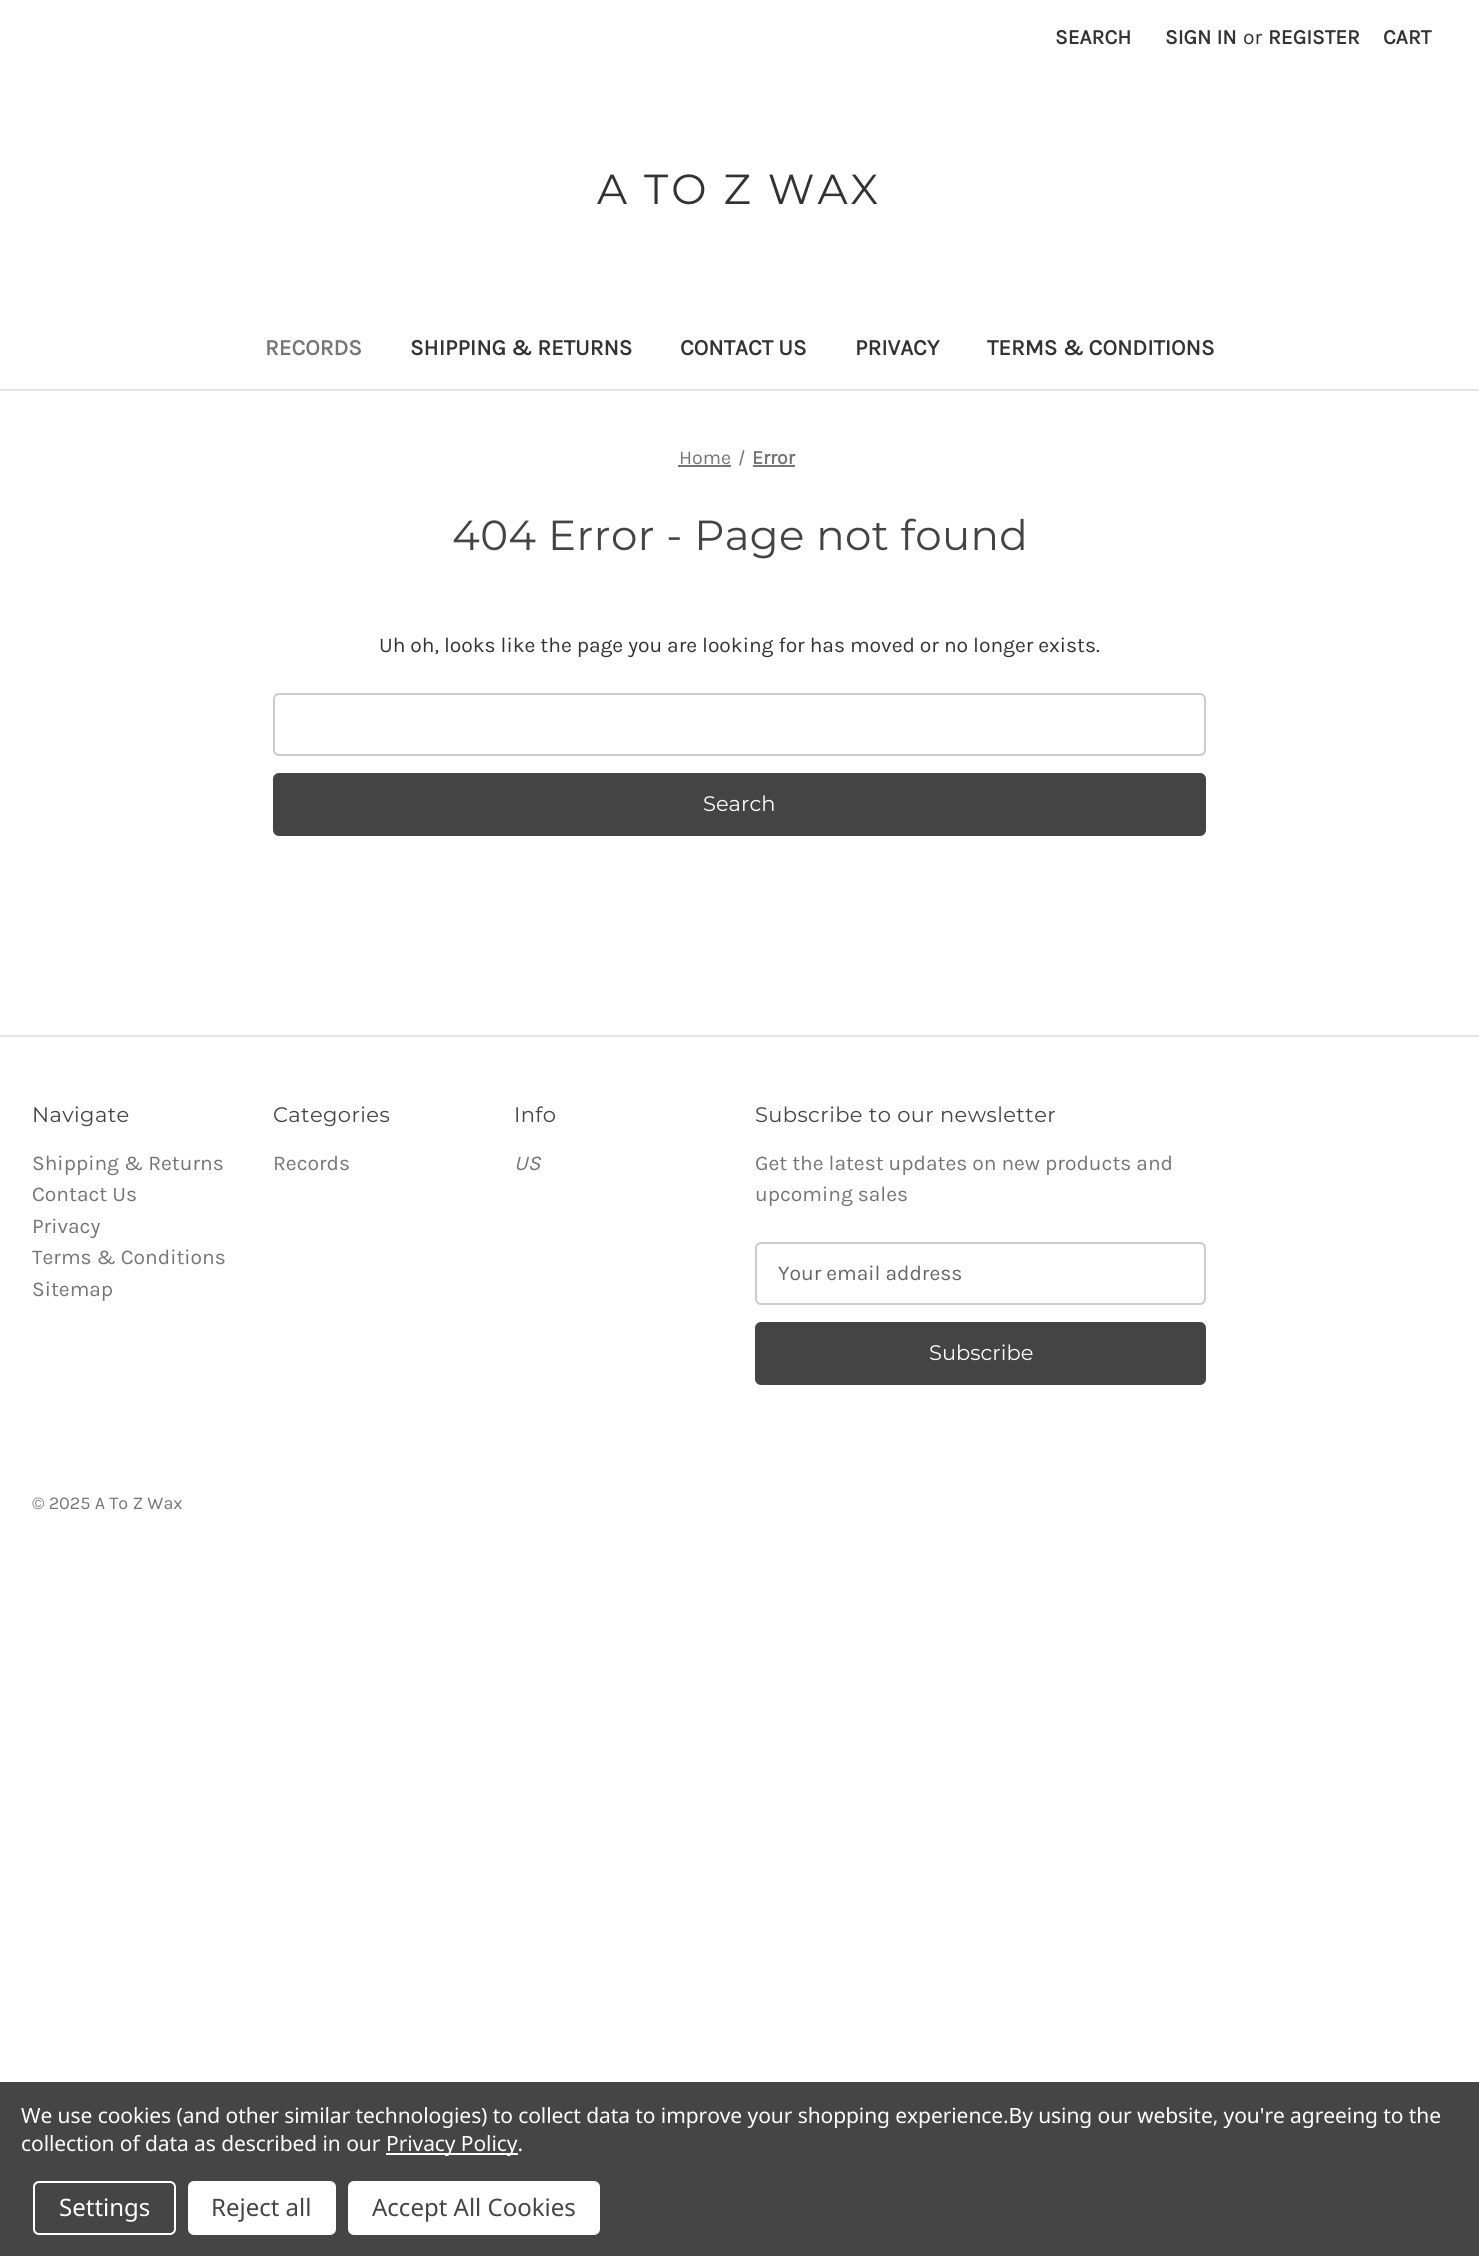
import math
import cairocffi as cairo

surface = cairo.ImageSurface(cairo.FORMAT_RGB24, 1479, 2256)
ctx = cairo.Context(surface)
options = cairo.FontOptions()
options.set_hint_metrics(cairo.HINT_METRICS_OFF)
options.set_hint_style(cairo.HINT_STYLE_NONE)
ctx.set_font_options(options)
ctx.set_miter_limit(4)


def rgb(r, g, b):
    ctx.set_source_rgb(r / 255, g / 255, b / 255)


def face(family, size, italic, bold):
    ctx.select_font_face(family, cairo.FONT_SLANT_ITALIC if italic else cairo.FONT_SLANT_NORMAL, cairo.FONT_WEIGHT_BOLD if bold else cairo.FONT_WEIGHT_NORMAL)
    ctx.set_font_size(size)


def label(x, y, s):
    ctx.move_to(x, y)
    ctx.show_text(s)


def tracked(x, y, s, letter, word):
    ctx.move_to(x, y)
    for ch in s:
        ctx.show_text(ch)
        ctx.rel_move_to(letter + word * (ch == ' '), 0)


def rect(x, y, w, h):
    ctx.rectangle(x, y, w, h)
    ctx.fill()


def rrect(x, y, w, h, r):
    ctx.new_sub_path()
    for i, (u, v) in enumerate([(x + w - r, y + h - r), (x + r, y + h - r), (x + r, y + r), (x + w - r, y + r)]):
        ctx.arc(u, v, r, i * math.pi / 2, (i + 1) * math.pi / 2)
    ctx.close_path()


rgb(255, 255, 255)
ctx.paint()
rgb(229, 229, 229)
rect(0, 389, 1479, 2)
face('Karla', 21, 0, 1)
rgb(51, 51, 51)
label(1055, 44, 'SEARCH')
label(1165, 44, 'SIGN IN')
face('Karla', 21, 0, 0)
label(1243, 44, 'or')
face('Karla', 21, 0, 1)
label(1268, 44, 'REGISTER')
label(1383, 44, 'CART')
face('Montserrat', 42, 0, 0)
tracked(597, 204, 'A TO Z WAX', 3, 0)
face('Karla', 22.5, 0, 1)
rgb(117, 117, 117)
label(265, 355, 'RECORDS')
rgb(51, 51, 51)
label(410, 355, 'SHIPPING & RETURNS')
label(680, 355, 'CONTACT US')
label(855, 355, 'PRIVACY')
label(987, 355, 'TERMS & CONDITIONS')
face('Karla', 19.5, 0, 0)
rgb(117, 117, 117)
label(679, 464, 'Home')
rect(678, 465, 53, 2)
ctx.new_path()
ctx.move_to(743, 450)
ctx.line_to(744.5, 450.5)
ctx.line_to(740.5, 465.5)
ctx.line_to(739, 465.5)
ctx.close_path()
ctx.fill()
face('Karla', 19.5, 0, 1)
label(752, 464, 'Error')
rect(753, 465, 42, 2)
face('Montserrat', 42, 0, 0)
rgb(68, 68, 68)
tracked(452, 550, '404 Error - Page not found', 0.4, 0)
face('Karla', 21, 0, 0)
rgb(51, 51, 51)
label(379, 652, 'Uh oh, looks like the page you are looking for has moved or no longer exists.')
rrect(274, 694, 931, 61, 5)
rgb(204, 204, 204)
ctx.stroke()
rgb(68, 68, 68)
rrect(274, 774, 931, 61, 5)
ctx.fill_preserve()
ctx.stroke()
face('Montserrat', 21, 0, 0)
rgb(255, 255, 255)
label(703, 811, 'Search')
rgb(229, 229, 229)
rect(0, 1035, 1479, 2)
rgb(68, 68, 68)
tracked(32, 1122, 'Navigate', 0.4, 0)
face('Karla', 21, 0, 0)
rgb(117, 117, 117)
label(32, 1170, 'Shipping & Returns')
label(32, 1201, 'Contact Us')
label(32, 1233, 'Privacy')
label(32, 1264, 'Terms & Conditions')
label(32, 1296, 'Sitemap')
face('Montserrat', 21, 0, 0)
rgb(68, 68, 68)
tracked(273, 1122, 'Categories', 0.4, 0)
face('Karla', 21, 0, 0)
rgb(117, 117, 117)
label(273, 1170, 'Records')
face('Montserrat', 21, 0, 0)
rgb(68, 68, 68)
tracked(514, 1122, 'Info', 0.4, 0)
face('Karla', 21, 1, 0)
rgb(117, 117, 117)
label(514, 1170, 'US')
face('Montserrat', 21, 0, 0)
rgb(68, 68, 68)
tracked(755, 1122, 'Subscribe to our newsletter', 0.4, 0)
face('Karla', 21, 0, 0)
rgb(117, 117, 117)
label(755, 1170, 'Get the latest updates on new products and')
label(755, 1201, 'upcoming sales')
rrect(756, 1243, 449, 61, 5)
rgb(204, 204, 204)
ctx.stroke()
rgb(102, 102, 102)
label(778, 1280, 'Your email address')
rgb(68, 68, 68)
rrect(756, 1323, 449, 61, 5)
ctx.fill_preserve()
ctx.stroke()
face('Montserrat', 21, 0, 0)
rgb(255, 255, 255)
label(929, 1360, 'Subscribe')
face('Karla', 18, 0, 0)
rgb(117, 117, 117)
label(32, 1509, '© 2025 A To Z Wax')
rgb(69, 69, 69)
rect(0, 2082, 1479, 174)
face('Noto Sans', 21, 0, 0)
rgb(255, 255, 255)
tracked(21, 2123, 'We use cookies (and other similar technologies) to collect data to improve your shopping experience.By using our website, you\'re agreeing to the', -0.08, 0)
tracked(21, 2151, 'collection of data as described in our', -0.08, 0)
rect(386, 2153, 132, 2)
tracked(386, 2151, 'Privacy Policy.', -0.08, 0)
rrect(34, 2182, 141, 52, 5)
ctx.stroke()
face('Noto Sans', 24, 0, 0)
label(59, 2216, 'Settings')
rrect(188, 2181, 148, 54, 6)
ctx.fill()
rgb(68, 68, 68)
label(211, 2216, 'Reject all')
rgb(255, 255, 255)
rrect(348, 2181, 252, 54, 6)
ctx.fill()
rgb(68, 68, 68)
label(372, 2216, 'Accept All Cookies')
surface.write_to_png('render.png')
